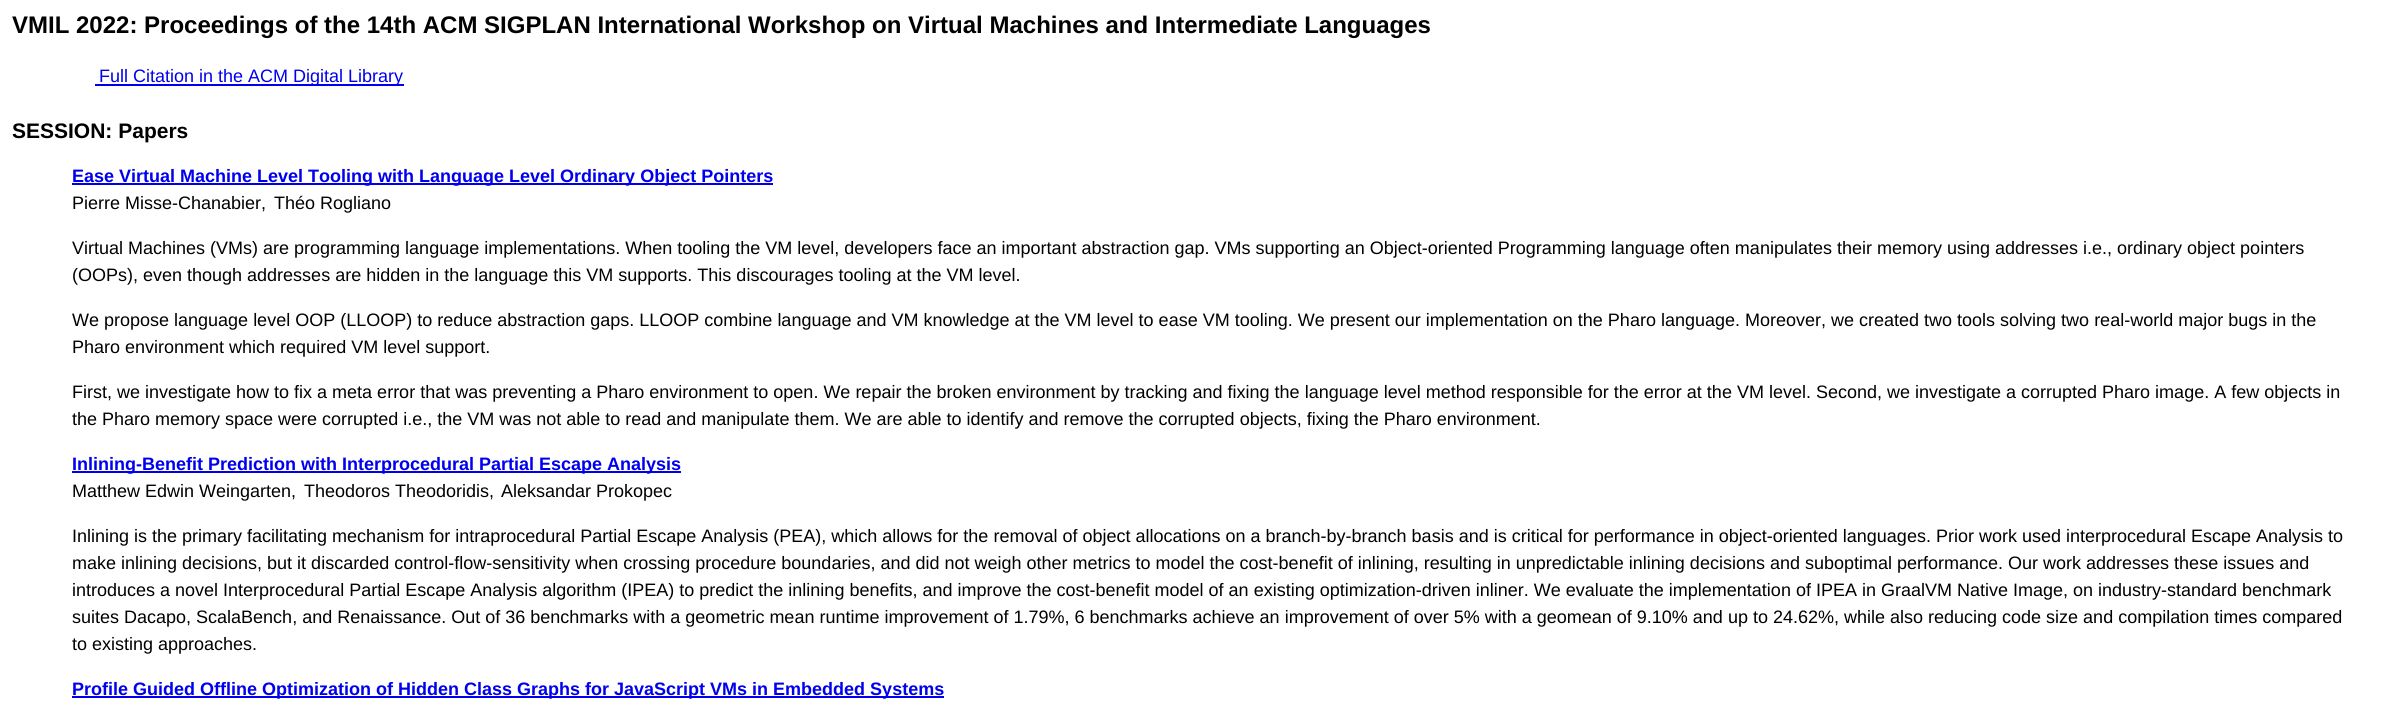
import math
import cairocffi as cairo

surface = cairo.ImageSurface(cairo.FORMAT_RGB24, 2402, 713)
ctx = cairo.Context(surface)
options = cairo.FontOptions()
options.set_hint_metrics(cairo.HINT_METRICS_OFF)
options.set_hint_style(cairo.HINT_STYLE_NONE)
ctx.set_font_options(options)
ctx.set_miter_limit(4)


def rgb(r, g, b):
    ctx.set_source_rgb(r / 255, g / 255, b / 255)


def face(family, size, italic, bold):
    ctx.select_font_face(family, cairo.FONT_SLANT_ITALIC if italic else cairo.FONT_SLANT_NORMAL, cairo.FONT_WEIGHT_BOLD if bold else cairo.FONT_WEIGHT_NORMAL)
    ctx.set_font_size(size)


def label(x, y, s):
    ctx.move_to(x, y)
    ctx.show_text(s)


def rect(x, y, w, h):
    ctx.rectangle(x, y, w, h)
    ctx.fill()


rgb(255, 255, 255)
ctx.paint()
face('Liberation Sans', 24, 0, 1)
rgb(0, 0, 0)
label(12, 33, 'VMIL 2022: Proceedings of the 14th ACM SIGPLAN International Workshop on Virtual Machines and Intermediate Languages')
rgb(0, 0, 238)
rect(95, 84, 309, 2)
face('Liberation Sans', 18, 0, 0)
label(99, 82, 'Full Citation in the ACM Digital Library')
face('Liberation Sans', 21, 0, 1)
rgb(0, 0, 0)
label(12, 138, 'SESSION: Papers')
rgb(0, 0, 238)
rect(72, 183, 701, 2)
face('Liberation Sans', 18, 0, 1)
label(72, 182, 'Ease Virtual Machine Level Tooling with Language Level Ordinary Object Pointers')
face('Liberation Sans', 18, 0, 0)
rgb(0, 0, 0)
label(72, 209, 'Pierre Misse-Chanabier,')
label(274, 209, 'Théo Rogliano')
label(72, 254, 'Virtual Machines (VMs) are programming language implementations. When tooling the VM level, developers face an important abstraction gap. VMs supporting an Object-oriented Programming language often manipulates their memory using addresses i.e., ordinary object pointers')
label(72, 281, '(OOPs), even though addresses are hidden in the language this VM supports. This discourages tooling at the VM level.')
label(72, 326, 'We propose language level OOP (LLOOP) to reduce abstraction gaps. LLOOP combine language and VM knowledge at the VM level to ease VM tooling. We present our implementation on the Pharo language. Moreover, we created two tools solving two real-world major bugs in the')
label(72, 353, 'Pharo environment which required VM level support.')
label(72, 398, 'First, we investigate how to fix a meta error that was preventing a Pharo environment to open. We repair the broken environment by tracking and fixing the language level method responsible for the error at the VM level. Second, we investigate a corrupted Pharo image. A few objects in')
label(72, 425, 'the Pharo memory space were corrupted i.e., the VM was not able to read and manipulate them. We are able to identify and remove the corrupted objects, fixing the Pharo environment.')
rgb(0, 0, 238)
rect(72, 471, 609, 2)
face('Liberation Sans', 18, 0, 1)
label(72, 470, 'Inlining-Benefit Prediction with Interprocedural Partial Escape Analysis')
face('Liberation Sans', 18, 0, 0)
rgb(0, 0, 0)
label(72, 497, 'Matthew Edwin Weingarten,')
label(304, 497, 'Theodoros Theodoridis,')
label(501, 497, 'Aleksandar Prokopec')
label(72, 542, 'Inlining is the primary facilitating mechanism for intraprocedural Partial Escape Analysis (PEA), which allows for the removal of object allocations on a branch-by-branch basis and is critical for performance in object-oriented languages. Prior work used interprocedural Escape Analysis to')
label(72, 569, 'make inlining decisions, but it discarded control-flow-sensitivity when crossing procedure boundaries, and did not weigh other metrics to model the cost-benefit of inlining, resulting in unpredictable inlining decisions and suboptimal performance. Our work addresses these issues and')
label(72, 596, 'introduces a novel Interprocedural Partial Escape Analysis algorithm (IPEA) to predict the inlining benefits, and improve the cost-benefit model of an existing optimization-driven inliner. We evaluate the implementation of IPEA in GraalVM Native Image, on industry-standard benchmark')
label(72, 623, 'suites Dacapo, ScalaBench, and Renaissance. Out of 36 benchmarks with a geometric mean runtime improvement of 1.79%, 6 benchmarks achieve an improvement of over 5% with a geomean of 9.10% and up to 24.62%, while also reducing code size and compilation times compared')
label(72, 650, 'to existing approaches.')
rgb(0, 0, 238)
rect(72, 696, 872, 2)
face('Liberation Sans', 18, 0, 1)
label(72, 695, 'Profile Guided Offline Optimization of Hidden Class Graphs for JavaScript VMs in Embedded Systems')
surface.write_to_png('render.png')
